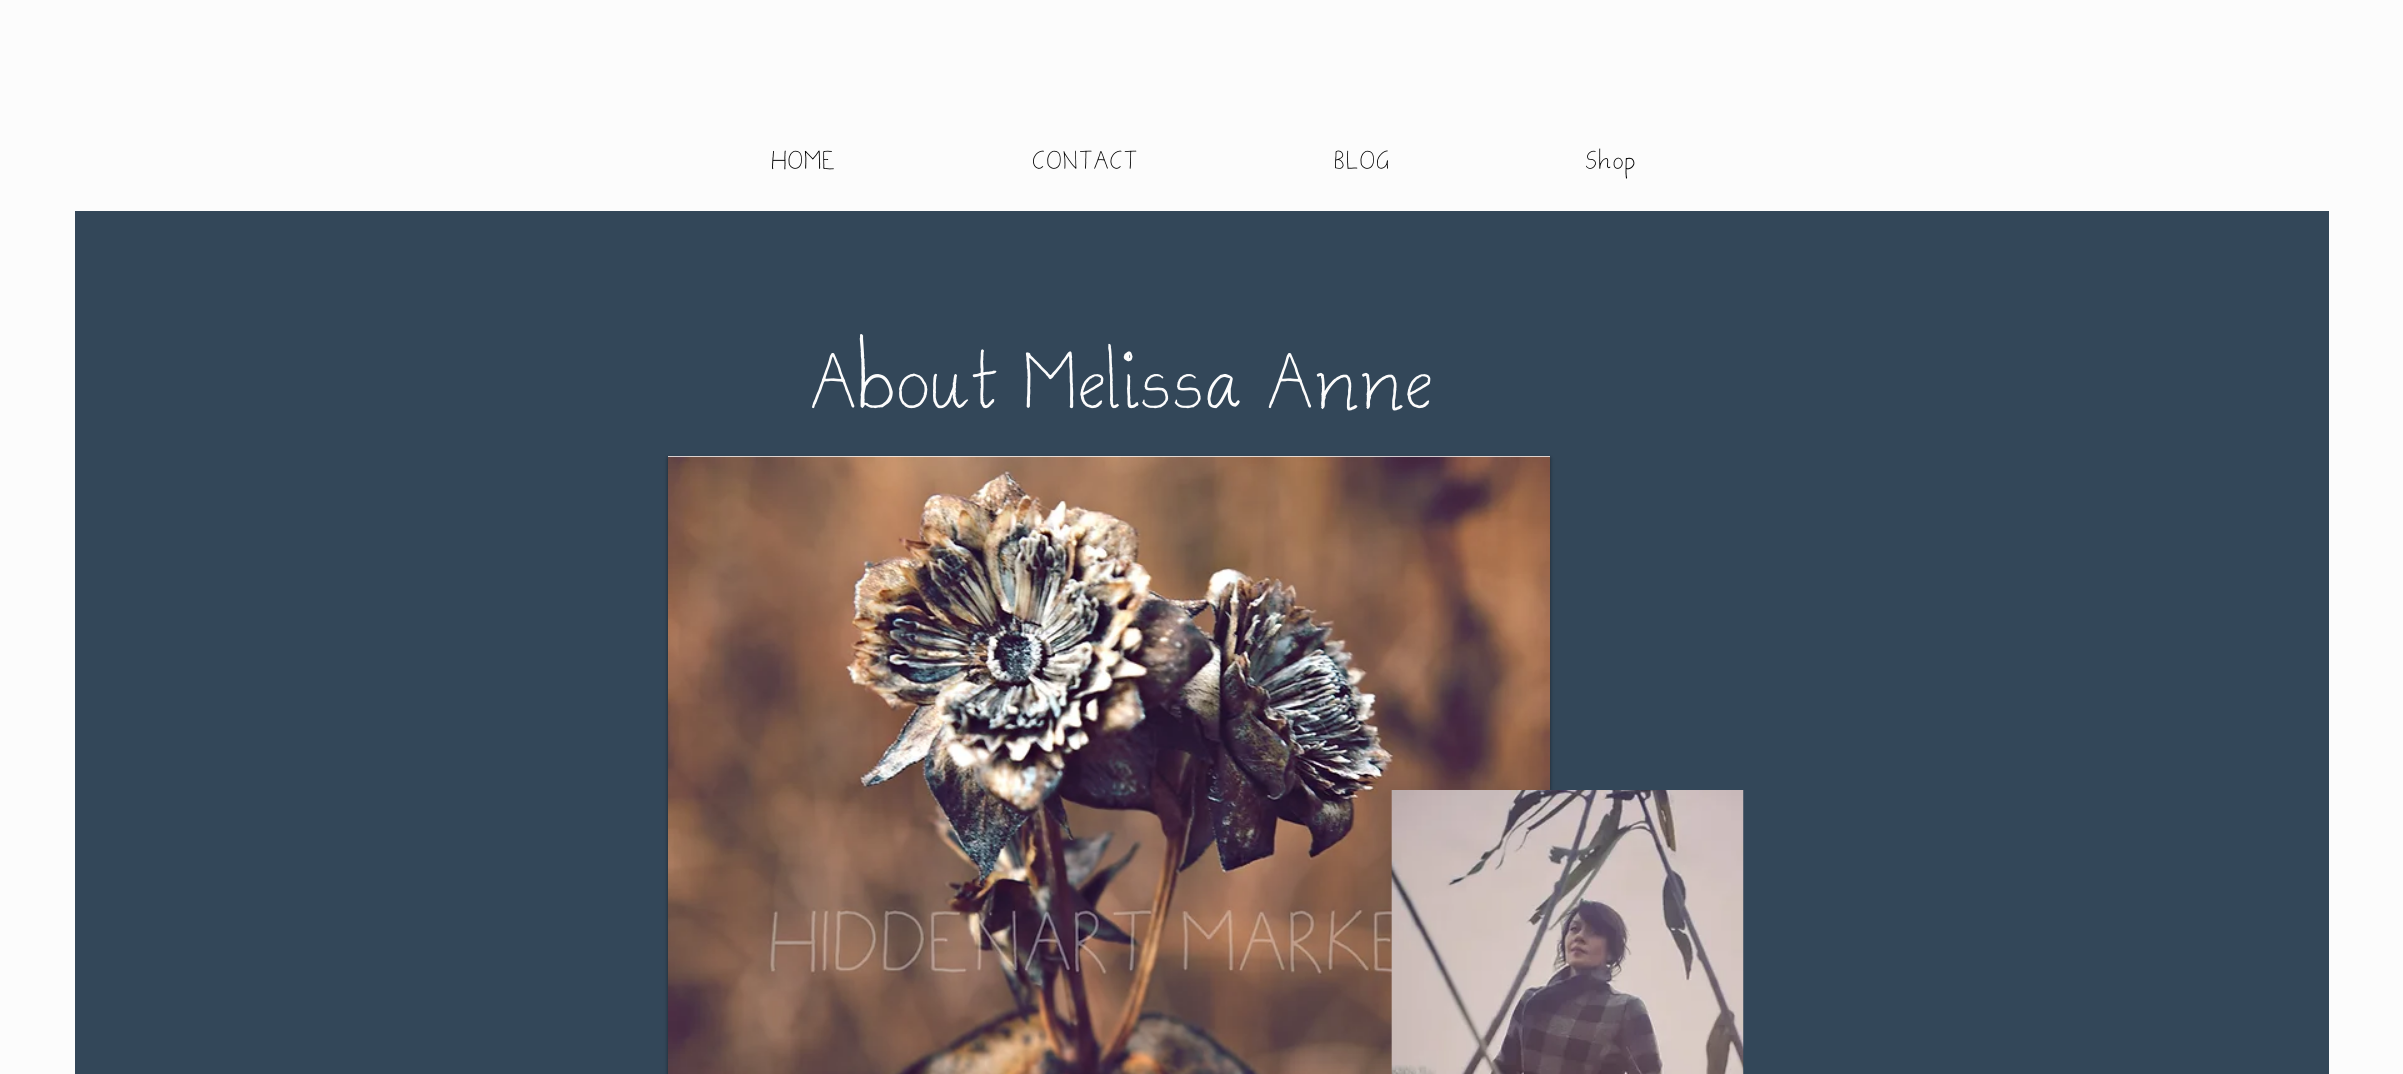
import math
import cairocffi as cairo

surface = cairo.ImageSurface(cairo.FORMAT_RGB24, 2403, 1074)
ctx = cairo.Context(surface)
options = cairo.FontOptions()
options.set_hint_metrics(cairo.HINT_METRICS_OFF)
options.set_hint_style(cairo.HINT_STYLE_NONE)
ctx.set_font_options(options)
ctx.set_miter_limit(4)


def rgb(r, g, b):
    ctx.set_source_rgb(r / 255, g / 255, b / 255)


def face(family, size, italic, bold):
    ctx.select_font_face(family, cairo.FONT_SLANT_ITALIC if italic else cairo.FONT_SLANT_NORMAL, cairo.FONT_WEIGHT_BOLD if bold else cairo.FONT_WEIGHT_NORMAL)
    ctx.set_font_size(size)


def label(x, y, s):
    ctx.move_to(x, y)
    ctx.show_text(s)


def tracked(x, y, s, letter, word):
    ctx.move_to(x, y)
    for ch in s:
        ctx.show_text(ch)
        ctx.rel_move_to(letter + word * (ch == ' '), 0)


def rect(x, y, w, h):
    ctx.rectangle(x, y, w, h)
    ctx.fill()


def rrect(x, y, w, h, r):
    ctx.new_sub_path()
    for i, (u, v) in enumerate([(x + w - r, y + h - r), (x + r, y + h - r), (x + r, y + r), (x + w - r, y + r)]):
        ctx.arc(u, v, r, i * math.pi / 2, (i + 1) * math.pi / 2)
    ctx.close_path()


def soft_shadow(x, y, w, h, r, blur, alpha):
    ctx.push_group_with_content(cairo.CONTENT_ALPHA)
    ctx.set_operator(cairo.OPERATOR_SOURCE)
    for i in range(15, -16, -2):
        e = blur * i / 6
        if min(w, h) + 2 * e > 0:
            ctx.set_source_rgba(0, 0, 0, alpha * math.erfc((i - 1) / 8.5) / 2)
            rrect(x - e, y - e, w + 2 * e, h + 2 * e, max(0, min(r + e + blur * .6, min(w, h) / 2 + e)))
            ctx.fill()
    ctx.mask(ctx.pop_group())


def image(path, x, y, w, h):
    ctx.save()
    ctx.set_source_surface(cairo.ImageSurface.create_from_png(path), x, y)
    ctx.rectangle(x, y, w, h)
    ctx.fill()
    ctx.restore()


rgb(252, 252, 252)
ctx.paint()
face('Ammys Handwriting', 22.5, 0, 0)
rgb(0, 0, 0)
tracked(772, 171, 'HOME', 1, 0)
tracked(1033, 171, 'CONTACT', 1, 0)
tracked(1335, 171, 'BLOG', 1, 0)
tracked(1586, 171, 'Shop', 1, 0)
rgb(51, 71, 89)
rect(75, 211, 2254, 863)
face('Ammys Handwriting', 70, 0, 0)
rgb(252, 252, 252)
label(812, 415, 'About Melissa Anne')
rgb(0, 0, 0)
soft_shadow(668, 458, 882, 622, 0, 2, 0.5)
rgb(254, 254, 254)
rect(668, 456, 882, 1)
image('image0.png', 668, 456, 882, 618)
image('image1.png', 1391, 790, 353, 284)
surface.write_to_png('render.png')
